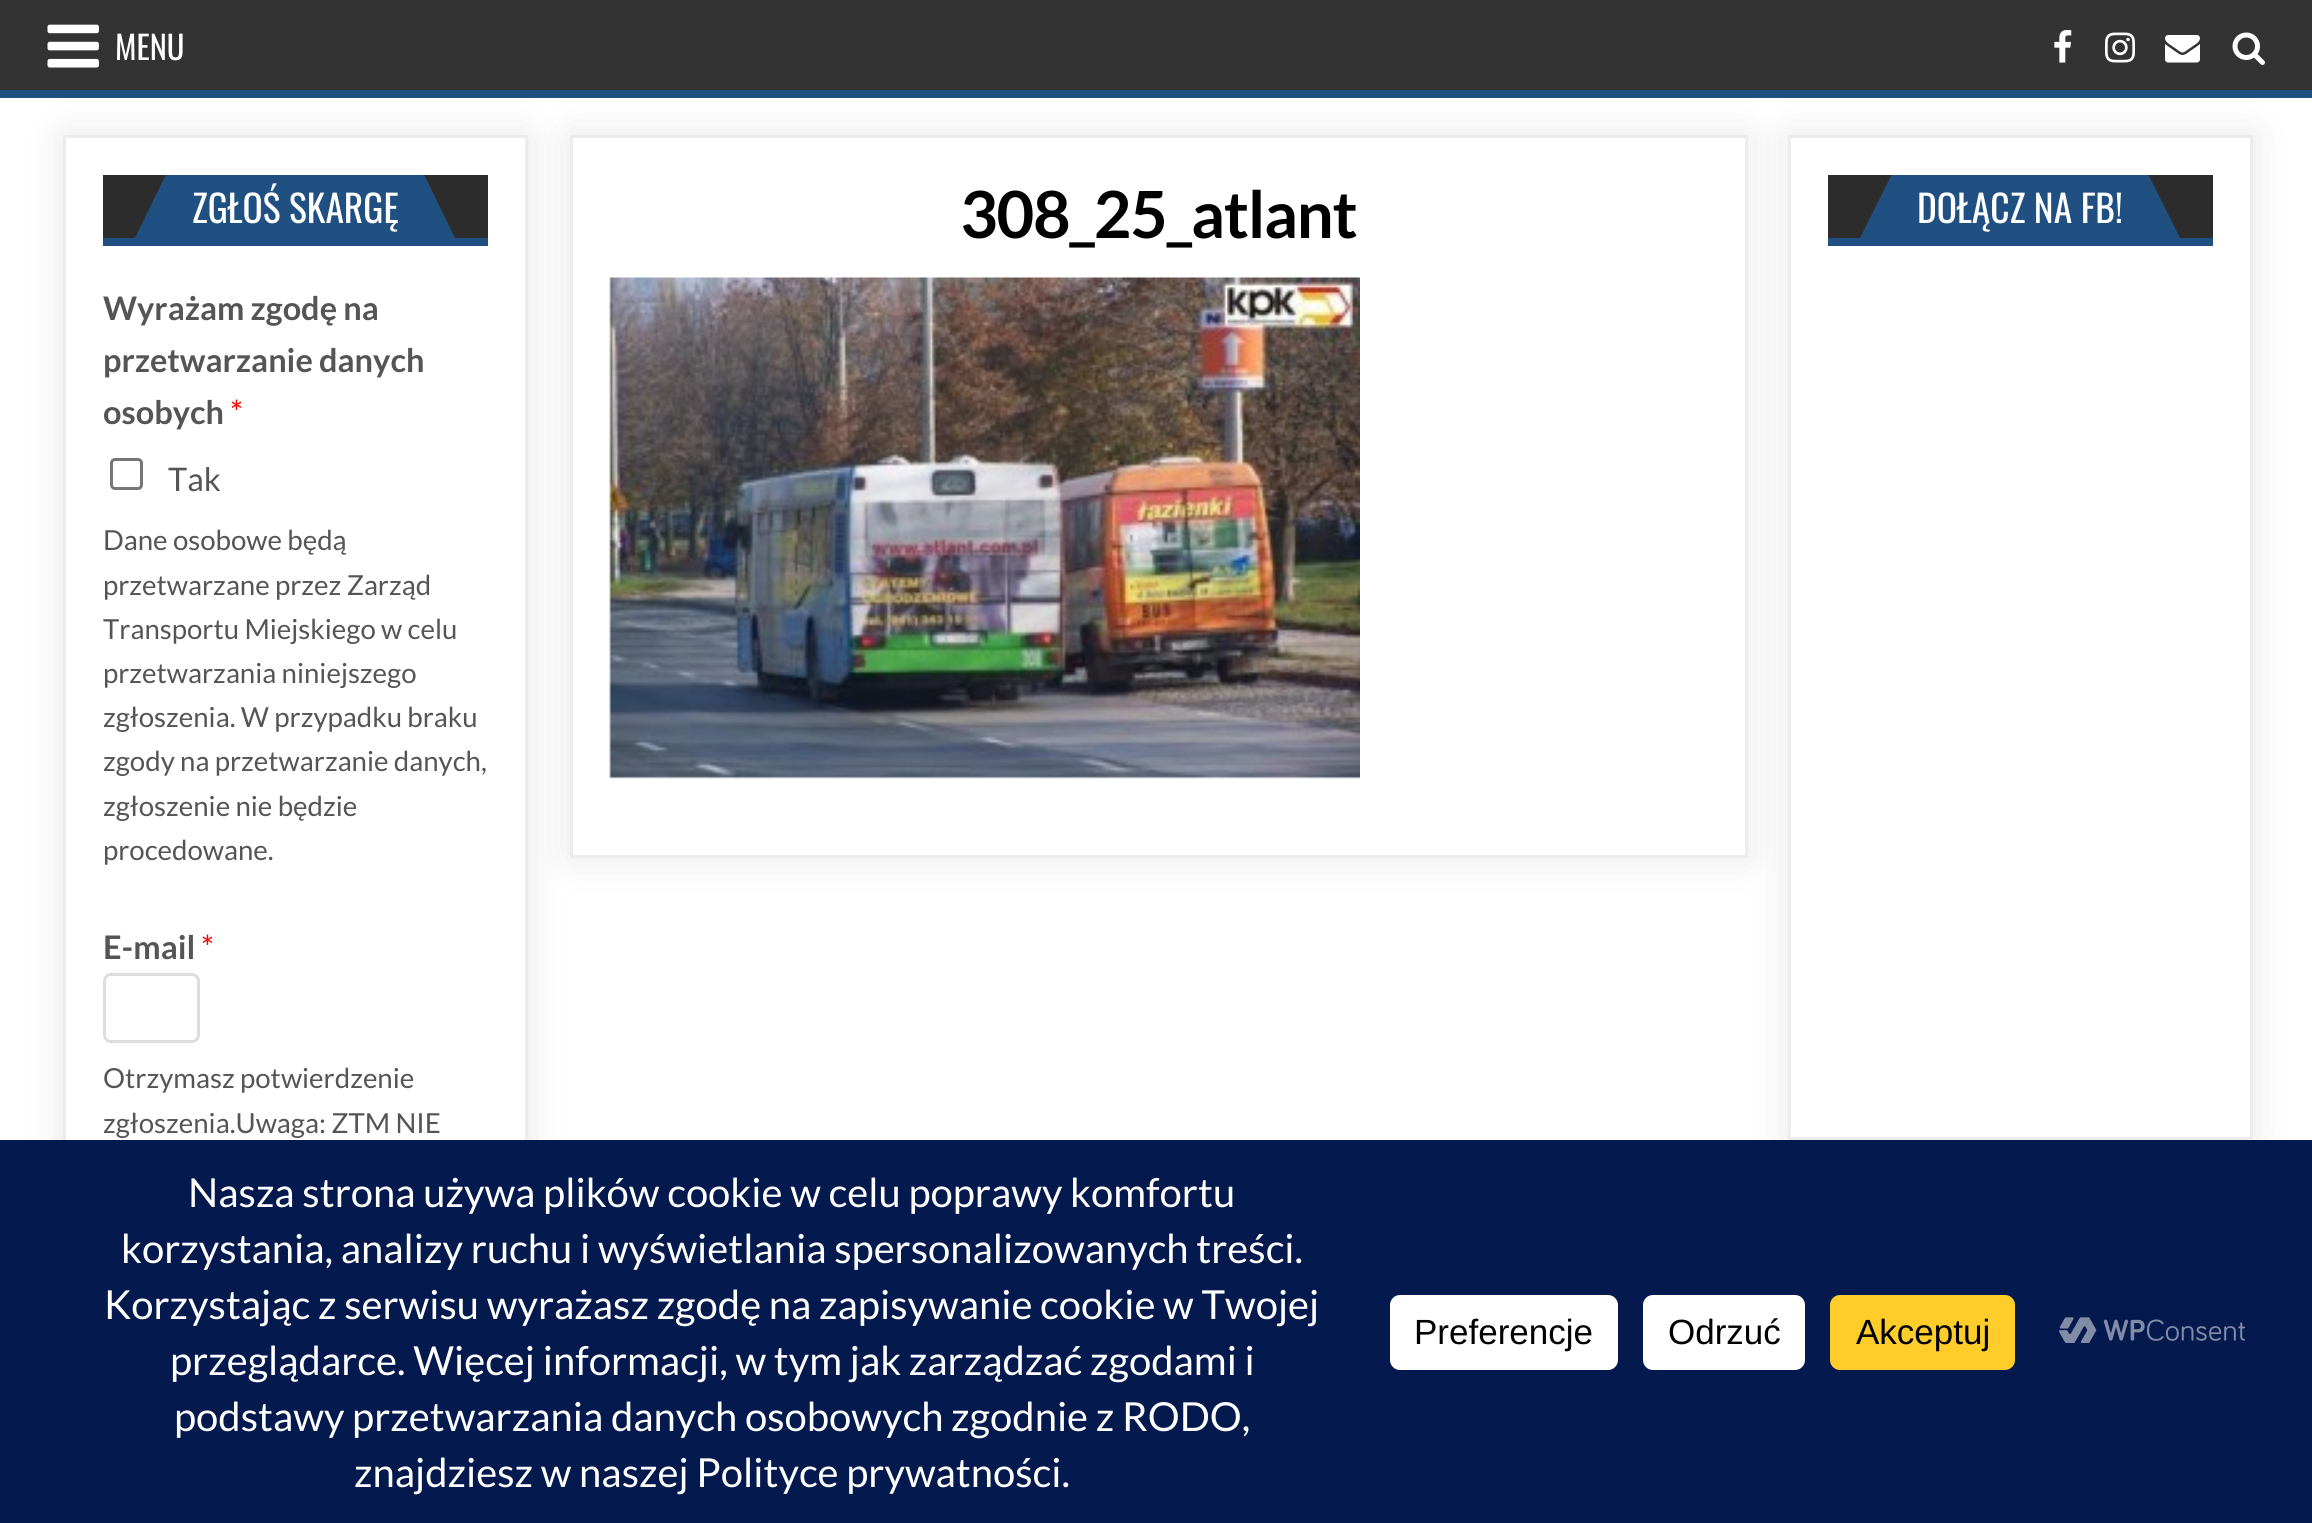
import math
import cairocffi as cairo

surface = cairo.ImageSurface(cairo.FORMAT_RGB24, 2312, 1523)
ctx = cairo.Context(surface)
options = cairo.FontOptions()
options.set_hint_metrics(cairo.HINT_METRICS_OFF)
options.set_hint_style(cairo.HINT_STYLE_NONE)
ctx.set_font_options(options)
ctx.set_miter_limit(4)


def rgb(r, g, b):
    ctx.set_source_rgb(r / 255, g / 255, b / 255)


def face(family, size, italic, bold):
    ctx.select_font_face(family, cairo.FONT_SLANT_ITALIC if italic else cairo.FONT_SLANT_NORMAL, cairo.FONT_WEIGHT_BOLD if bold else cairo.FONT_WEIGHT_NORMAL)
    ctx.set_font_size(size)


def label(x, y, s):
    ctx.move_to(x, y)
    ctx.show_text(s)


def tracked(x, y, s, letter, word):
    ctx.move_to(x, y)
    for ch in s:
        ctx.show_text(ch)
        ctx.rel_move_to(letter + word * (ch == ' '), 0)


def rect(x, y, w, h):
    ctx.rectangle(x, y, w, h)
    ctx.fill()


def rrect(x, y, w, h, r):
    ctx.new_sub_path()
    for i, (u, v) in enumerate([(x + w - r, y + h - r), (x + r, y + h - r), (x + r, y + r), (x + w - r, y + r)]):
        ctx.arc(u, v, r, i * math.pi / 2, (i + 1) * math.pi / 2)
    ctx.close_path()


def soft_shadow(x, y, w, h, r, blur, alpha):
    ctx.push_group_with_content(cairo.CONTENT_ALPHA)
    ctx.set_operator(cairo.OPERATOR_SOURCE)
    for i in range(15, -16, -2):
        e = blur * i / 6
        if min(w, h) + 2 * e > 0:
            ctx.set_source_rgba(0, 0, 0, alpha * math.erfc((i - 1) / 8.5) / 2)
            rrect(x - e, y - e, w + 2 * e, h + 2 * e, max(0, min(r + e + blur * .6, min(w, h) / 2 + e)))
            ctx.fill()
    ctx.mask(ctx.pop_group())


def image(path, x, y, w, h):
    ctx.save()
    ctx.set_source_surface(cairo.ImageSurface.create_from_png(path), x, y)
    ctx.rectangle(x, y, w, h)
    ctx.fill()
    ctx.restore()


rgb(255, 255, 255)
ctx.paint()
rgb(51, 51, 51)
rect(0, 0, 2312, 90)
rgb(32, 80, 129)
rect(0, 90, 2312, 8)
image('image0.png', 47, 24, 52, 44)
face('Oswald', 32.5, 0, 0)
rgb(255, 255, 255)
label(115, 60, 'MENU')
image('image1.png', 2054, 30, 18, 33)
image('image2.png', 2105, 32, 30, 31)
image('image3.png', 2165, 35, 35, 28)
image('image4.png', 2232, 32, 33, 33)
rgb(0, 0, 0)
soft_shadow(63, 135, 465, 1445, 0, 19, 0.1)
rgb(255, 255, 255)
rect(66, 138, 459, 1002)
ctx.rectangle(64.5, 136.5, 462, 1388)
rgb(236, 236, 236)
ctx.set_line_width(3)
ctx.stroke()
rgb(44, 44, 44)
rect(103, 175, 385, 63)
rgb(32, 80, 129)
rect(103, 238, 385, 8)
rect(172, 175, 246, 63)
ctx.save()
ctx.rectangle(103, 175, 385, 63)
ctx.clip()
ctx.new_path()
ctx.move_to(172, 162)
ctx.line_to(172, 238)
ctx.line_to(135, 238)
ctx.close_path()
ctx.fill()
ctx.restore()
face('Oswald', 37.5, 0, 0)
rgb(255, 255, 255)
label(192, 223, 'ZGŁOŚ SKARGĘ')
ctx.save()
ctx.rectangle(103, 175, 385, 63)
ctx.clip()
rgb(32, 80, 129)
ctx.new_path()
ctx.move_to(418, 238)
ctx.line_to(418, 162)
ctx.line_to(455, 238)
ctx.close_path()
ctx.fill()
ctx.restore()
face('Lato', 32.5, 0, 1)
rgb(85, 85, 85)
label(103, 320, 'Wyrażam zgodę na')
label(103, 372, 'przetwarzanie danych')
label(103, 424, 'osobych')
face('Lato', 32.5, 0, 0)
rgb(255, 0, 0)
label(230, 424, '*')
rrect(111.5, 459.5, 30, 29, 3.5)
rgb(118, 118, 118)
ctx.stroke()
rgb(85, 85, 85)
label(168, 491, 'Tak')
face('Lato', 27.6, 0, 0)
label(103, 550, 'Dane osobowe będą')
label(103, 595, 'przetwarzane przez Zarząd')
label(103, 639, 'Transportu Miejskiego w celu')
label(103, 683, 'przetwarzania niniejszego')
label(103, 727, 'zgłoszenia. W przypadku braku')
label(103, 771, 'zgody na przetwarzanie danych,')
label(103, 816, 'zgłoszenie nie będzie')
label(103, 860, 'procedowane.')
face('Lato', 32.5, 0, 1)
label(103, 959, 'E-mail')
face('Lato', 32.5, 0, 0)
rgb(255, 0, 0)
label(201, 959, '*')
rrect(104.5, 974.5, 94, 67, 6.5)
rgb(221, 221, 221)
ctx.stroke()
face('Lato', 27.6, 0, 0)
rgb(85, 85, 85)
label(103, 1088, 'Otrzymasz potwierdzenie')
label(103, 1133, 'zgłoszenia.Uwaga: ZTM NIE')
rgb(0, 0, 0)
soft_shadow(570, 135, 1178, 723, 0, 19, 0.1)
rgb(255, 255, 255)
ctx.rectangle(571.5, 136.5, 1175, 720)
ctx.fill_preserve()
rgb(236, 236, 236)
ctx.stroke()
face('Lato', 65, 0, 1)
rgb(0, 0, 0)
tracked(960, 238, '308_25_atlant', -1.25, 0)
image('image5.png', 609, 277, 751, 502)
rgb(0, 0, 0)
soft_shadow(1788, 135, 465, 1005, 0, 19, 0.1)
rgb(255, 255, 255)
ctx.rectangle(1789.5, 136.5, 462, 1002)
ctx.fill_preserve()
rgb(236, 236, 236)
ctx.stroke()
rgb(44, 44, 44)
rect(1828, 175, 385, 63)
rgb(32, 80, 129)
rect(1828, 238, 385, 8)
rect(1898, 175, 244, 63)
ctx.save()
ctx.rectangle(1828, 175, 385, 63)
ctx.clip()
ctx.new_path()
ctx.move_to(1898, 162)
ctx.line_to(1898, 238)
ctx.line_to(1860, 238)
ctx.close_path()
ctx.fill()
ctx.restore()
face('Oswald', 37.5, 0, 0)
rgb(255, 255, 255)
label(1917, 223, 'DOŁĄCZ NA FB!')
ctx.save()
ctx.rectangle(1828, 175, 385, 63)
ctx.clip()
rgb(32, 80, 129)
ctx.new_path()
ctx.move_to(2142, 238)
ctx.line_to(2142, 162)
ctx.line_to(2180, 238)
ctx.close_path()
ctx.fill()
ctx.restore()
rgb(4, 25, 78)
rect(0, 1140, 2312, 383)
face('Lato', 40, 0, 0)
rgb(255, 255, 255)
label(188, 1207, 'Nasza strona używa plików cookie w celu poprawy komfortu')
label(121, 1263, 'korzystania, analizy ruchu i wyświetlania spersonalizowanych treści.')
label(104, 1319, 'Korzystając z serwisu wyrażasz zgodę na zapisywanie cookie w Twojej')
label(170, 1375, 'przeglądarce. Więcej informacji, w tym jak zarządzać zgodami i')
label(174, 1431, 'podstawy przetwarzania danych osobowych zgodnie z RODO,')
label(354, 1487, 'znajdziesz w naszej Polityce prywatności.')
rrect(1390, 1295, 228, 75, 10)
ctx.fill()
face('Liberation Sans', 35, 0, 0)
rgb(0, 0, 0)
label(1414, 1344, 'Preferencje')
rgb(255, 255, 255)
rrect(1643, 1295, 162, 75, 10)
ctx.fill()
rgb(0, 0, 0)
label(1668, 1344, 'Odrzuć')
rgb(255, 205, 42)
rrect(1830, 1295, 185, 75, 10)
ctx.fill()
rgb(0, 0, 0)
label(1856, 1344, 'Akceptuj')
image('image6.png', 2059, 1317, 186, 26)
surface.write_to_png('render.png')
